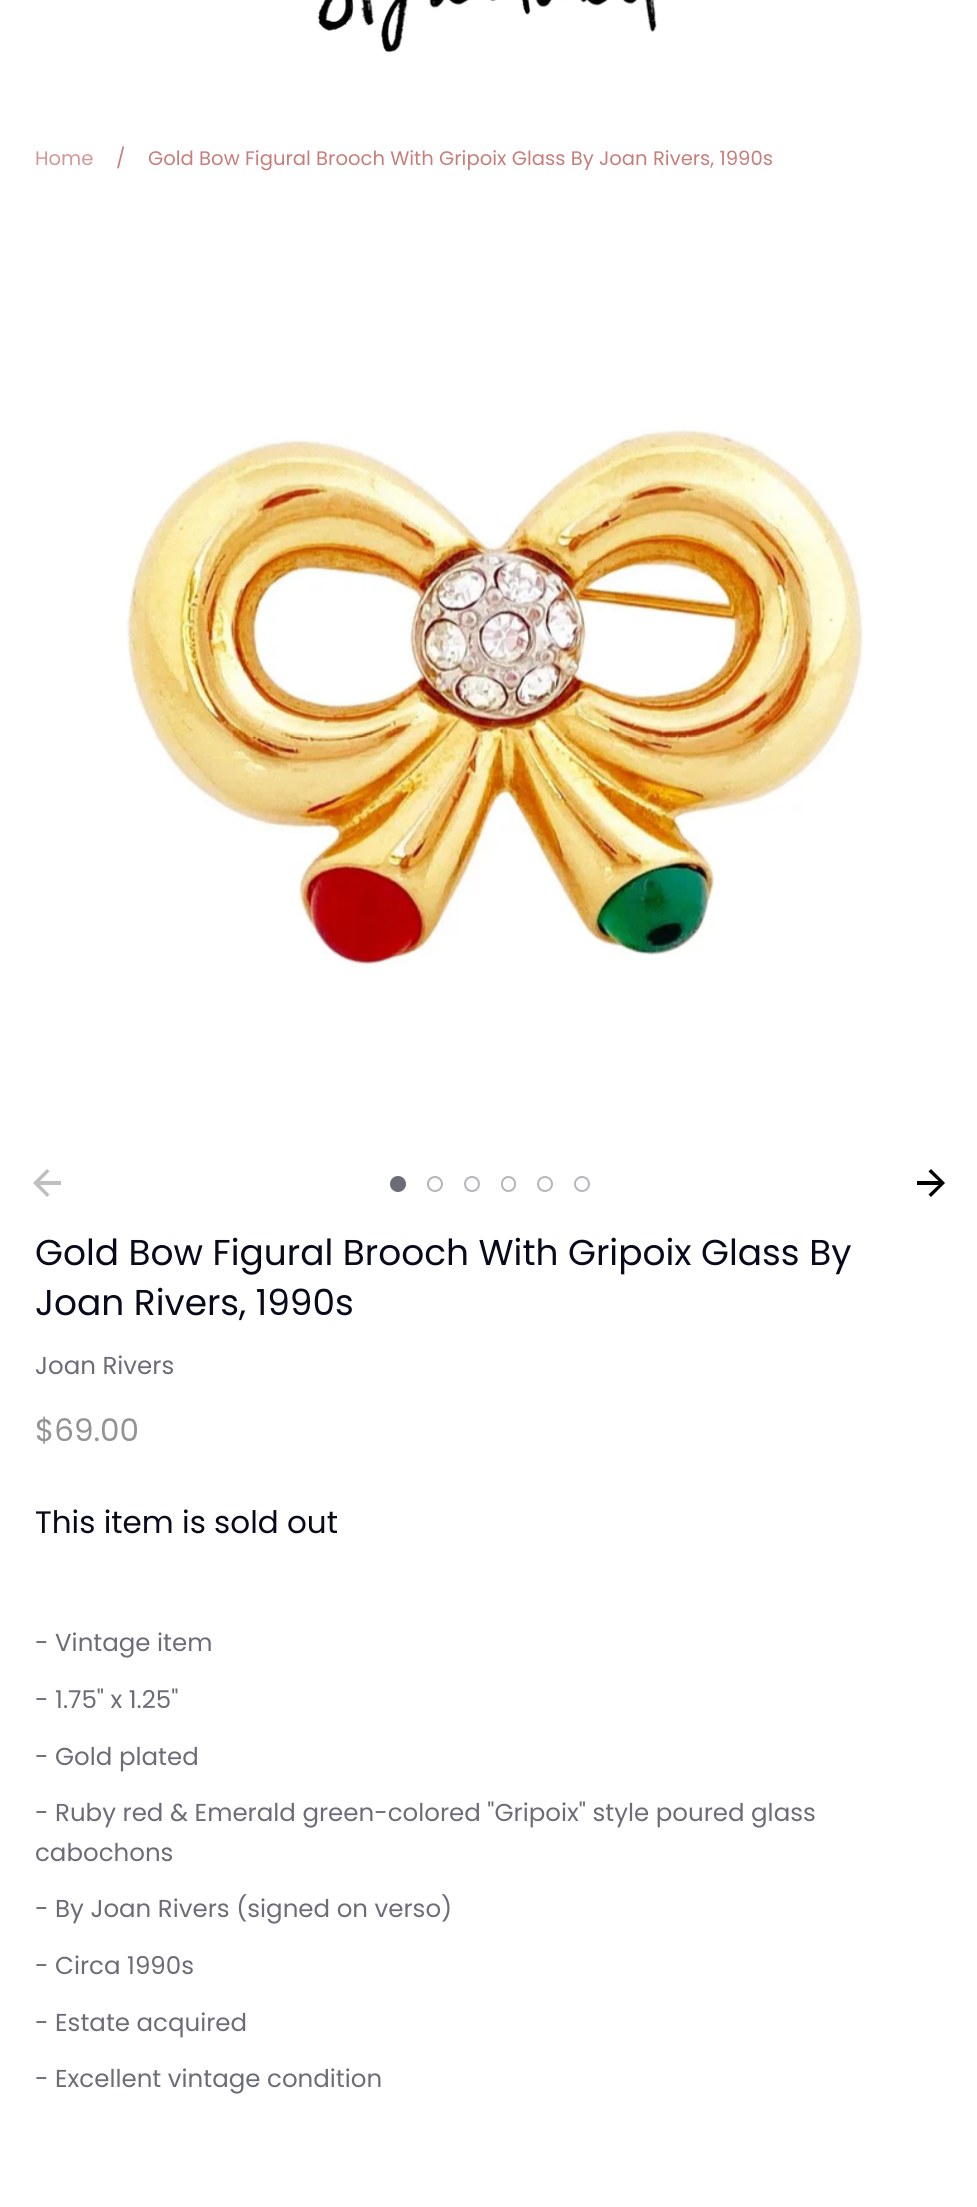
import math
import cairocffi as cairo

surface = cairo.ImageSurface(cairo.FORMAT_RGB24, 977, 2207)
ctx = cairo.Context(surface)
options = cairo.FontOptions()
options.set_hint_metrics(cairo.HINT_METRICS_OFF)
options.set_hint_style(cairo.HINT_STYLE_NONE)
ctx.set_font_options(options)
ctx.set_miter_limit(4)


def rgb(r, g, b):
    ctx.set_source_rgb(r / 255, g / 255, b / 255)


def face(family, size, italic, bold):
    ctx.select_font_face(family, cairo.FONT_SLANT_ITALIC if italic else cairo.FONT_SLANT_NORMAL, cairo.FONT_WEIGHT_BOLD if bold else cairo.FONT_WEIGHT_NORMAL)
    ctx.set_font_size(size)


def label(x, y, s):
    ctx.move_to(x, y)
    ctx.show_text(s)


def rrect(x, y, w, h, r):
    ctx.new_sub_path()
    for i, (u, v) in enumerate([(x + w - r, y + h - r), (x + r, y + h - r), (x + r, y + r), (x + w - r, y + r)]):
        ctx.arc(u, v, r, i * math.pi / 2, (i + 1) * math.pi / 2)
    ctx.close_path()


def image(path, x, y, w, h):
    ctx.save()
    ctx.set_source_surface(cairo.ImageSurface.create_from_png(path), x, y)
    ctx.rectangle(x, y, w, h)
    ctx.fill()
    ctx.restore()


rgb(255, 255, 255)
ctx.paint()
image('image0.png', 318, 0, 339, 53)
face('Poppins', 19.6, 0, 0)
rgb(210, 152, 149)
label(35, 165, 'Home')
rgb(199, 126, 122)
label(116, 165, '/')
label(148, 165, 'Gold Bow Figural Brooch With Gripoix Glass By Joan Rivers, 1990s')
image('image1.png', 126, 429, 737, 538)
rgb(191, 191, 191)
ctx.new_path()
ctx.move_to(61, 1181)
ctx.line_to(40, 1181)
ctx.line_to(49.5, 1171.5)
ctx.line_to(47, 1169)
ctx.line_to(33, 1183)
ctx.line_to(47, 1197)
ctx.line_to(49.5, 1194.5)
ctx.line_to(40, 1185)
ctx.line_to(61, 1185)
ctx.close_path()
ctx.fill()
rgb(0, 0, 0)
ctx.new_path()
ctx.move_to(931, 1169)
ctx.line_to(928.5, 1171.5)
ctx.line_to(938.5, 1181)
ctx.line_to(917, 1181)
ctx.line_to(917, 1185)
ctx.line_to(938.5, 1185)
ctx.line_to(928.5, 1194.5)
ctx.line_to(931, 1197)
ctx.line_to(945, 1183)
ctx.close_path()
ctx.fill()
rgb(107, 108, 119)
ctx.arc(398, 1184, 7, 0, 2 * math.pi)
ctx.fill_preserve()
ctx.stroke()
ctx.arc(435, 1184, 7, 0, 2 * math.pi)
rgb(181, 182, 187)
ctx.stroke()
ctx.arc(472, 1184, 7, 0, 2 * math.pi)
ctx.stroke()
rrect(502, 1177, 13, 14, 6.5)
ctx.stroke()
ctx.arc(545, 1184, 7, 0, 2 * math.pi)
ctx.stroke()
ctx.arc(582, 1184, 7, 0, 2 * math.pi)
ctx.stroke()
face('Poppins', 35.9, 0, 0)
rgb(8, 10, 28)
label(35, 1265, 'Gold Bow Figural Brooch With Gripoix Glass By')
label(35, 1315, 'Joan Rivers, 1990s')
face('Poppins', 24.5, 0, 0)
rgb(107, 108, 119)
label(35, 1374, 'Joan Rivers')
face('Poppins', 31, 0, 0)
rgb(147, 147, 147)
label(35, 1441, '$69.00')
rgb(8, 10, 28)
label(35, 1533, 'This item is sold out')
face('Poppins', 24.5, 0, 0)
rgb(107, 108, 119)
label(35, 1651, '- Vintage item')
label(35, 1708, '- 1.75" x 1.25"')
label(35, 1765, '- Gold plated')
label(35, 1821, '- Ruby red & Emerald green-colored "Gripoix" style poured glass')
label(35, 1861, 'cabochons')
label(35, 1917, '- By Joan Rivers (signed on verso)')
label(35, 1974, '- Circa 1990s')
label(35, 2031, '- Estate acquired')
label(35, 2087, '- Excellent vintage condition')
surface.write_to_png('render.png')
